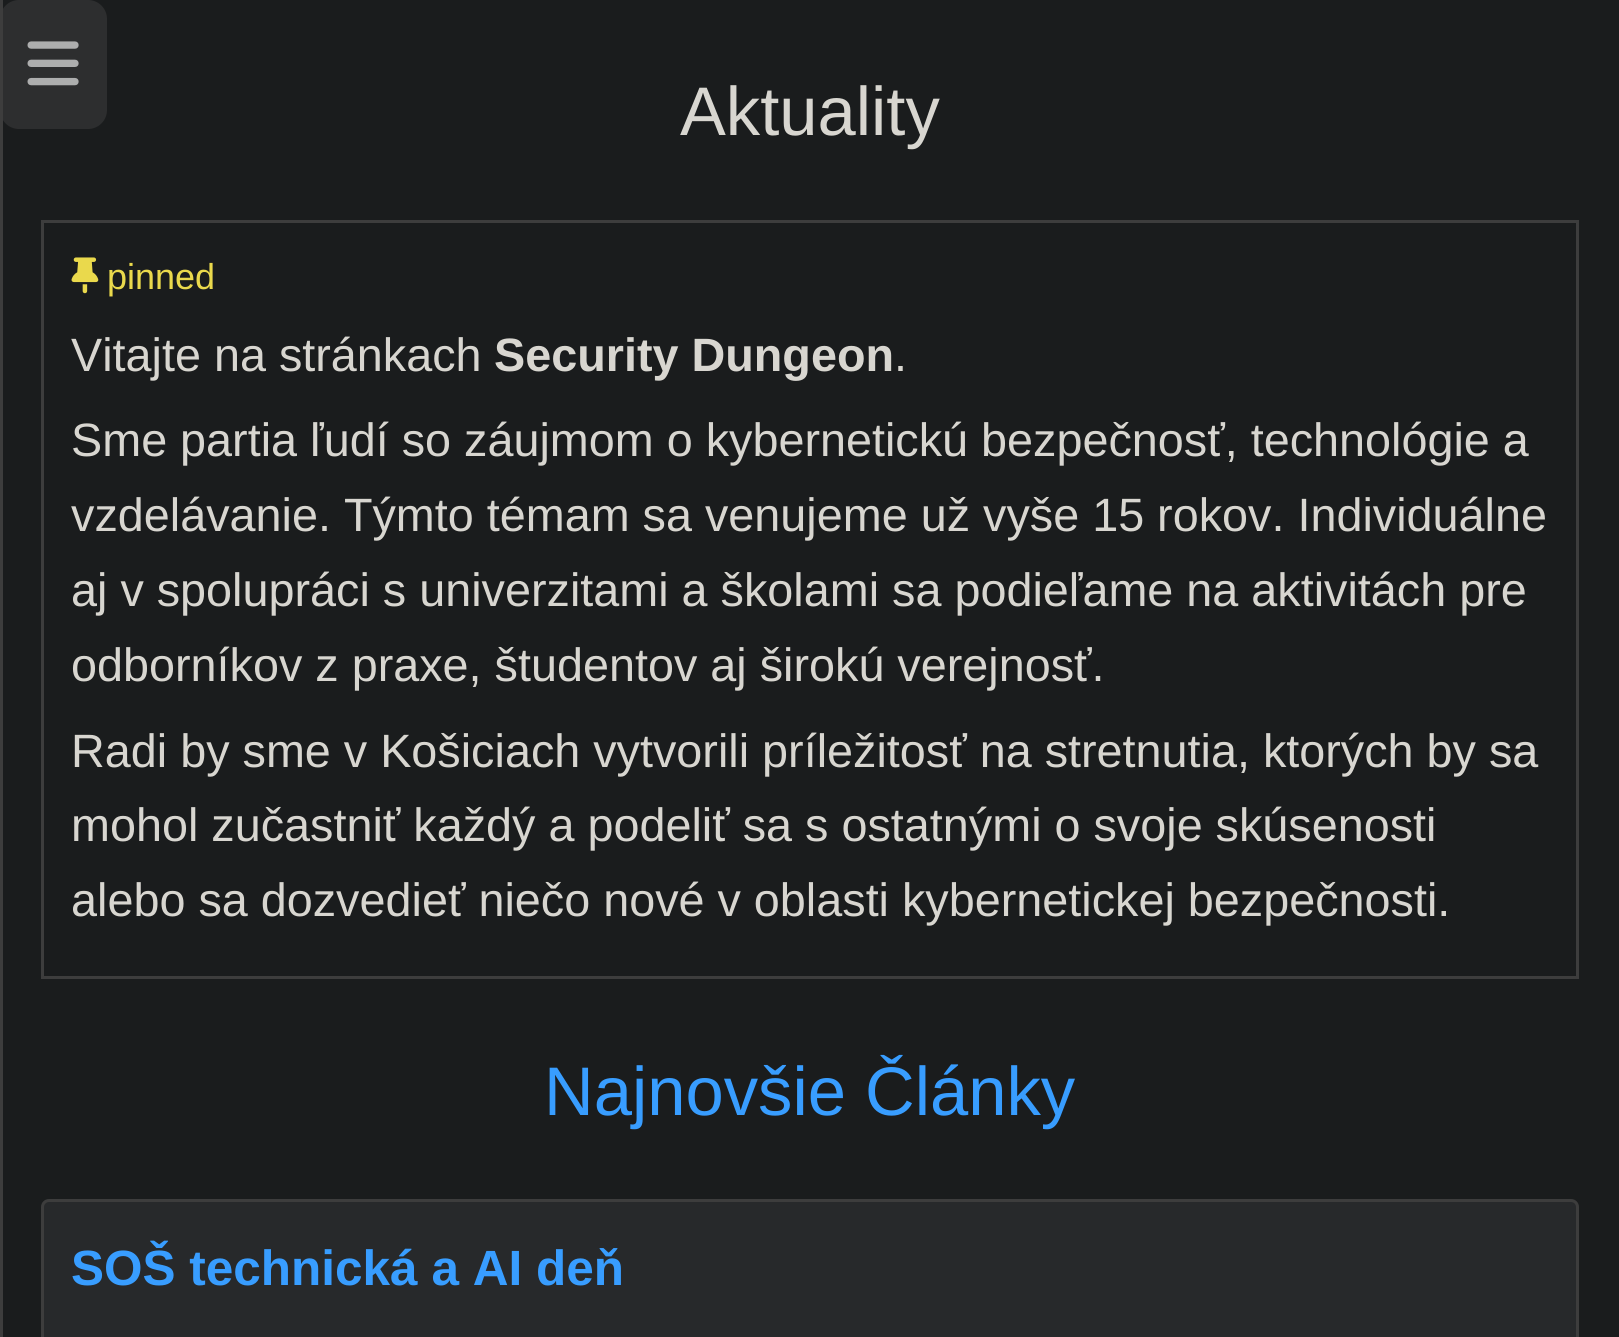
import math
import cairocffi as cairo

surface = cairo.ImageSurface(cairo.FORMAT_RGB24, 1619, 1337)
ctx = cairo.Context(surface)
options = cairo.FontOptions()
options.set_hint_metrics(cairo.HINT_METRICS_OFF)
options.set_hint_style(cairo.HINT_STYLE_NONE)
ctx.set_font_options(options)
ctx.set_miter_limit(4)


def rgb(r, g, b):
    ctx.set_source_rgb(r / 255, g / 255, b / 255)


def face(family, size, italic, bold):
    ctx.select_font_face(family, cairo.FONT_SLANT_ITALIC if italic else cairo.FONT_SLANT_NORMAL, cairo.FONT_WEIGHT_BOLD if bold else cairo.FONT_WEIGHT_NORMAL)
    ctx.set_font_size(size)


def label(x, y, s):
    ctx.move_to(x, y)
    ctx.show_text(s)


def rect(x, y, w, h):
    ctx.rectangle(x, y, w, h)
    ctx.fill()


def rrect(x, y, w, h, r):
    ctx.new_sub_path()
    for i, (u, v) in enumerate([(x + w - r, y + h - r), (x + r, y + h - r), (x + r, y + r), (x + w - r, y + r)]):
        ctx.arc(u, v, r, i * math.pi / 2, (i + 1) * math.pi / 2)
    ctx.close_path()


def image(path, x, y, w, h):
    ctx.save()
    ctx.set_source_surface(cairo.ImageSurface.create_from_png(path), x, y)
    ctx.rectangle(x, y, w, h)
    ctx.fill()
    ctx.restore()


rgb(26, 28, 29)
ctx.paint()
rgb(45, 46, 47)
rrect(0, 0, 107, 129, 19)
ctx.fill()
rgb(61, 61, 61)
rect(0, 0, 3, 1337)
image('image0.png', 27, 41, 52, 45)
face('Liberation Sans', 68.75, 0, 0)
rgb(216, 214, 208)
label(680, 135, 'Aktuality')
ctx.rectangle(42.5, 221.5, 1535, 756)
rgb(61, 61, 61)
ctx.set_line_width(3)
ctx.stroke()
image('image1.png', 71, 257, 28, 37)
face('Liberation Sans', 36, 0, 0)
rgb(234, 217, 76)
label(107, 289, 'pinned')
face('Liberation Sans', 46.75, 0, 0)
rgb(216, 214, 208)
label(71, 371, 'Vitajte na stránkach')
face('Liberation Sans', 46.75, 0, 1)
label(494, 371, 'Security Dungeon')
face('Liberation Sans', 46.75, 0, 0)
label(894, 371, '.')
label(71, 456, 'Sme partia ľudí so záujmom o kybernetickú bezpečnosť, technológie a')
label(71, 531, 'vzdelávanie. Týmto témam sa venujeme už vyše 15 rokov. Individuálne')
label(71, 606, 'aj v spolupráci s univerzitami a školami sa podieľame na aktivitách pre')
label(71, 681, 'odborníkov z praxe, študentov aj širokú verejnosť.')
label(71, 767, 'Radi by sme v Košiciach vytvorili príležitosť na stretnutia, ktorých by sa')
label(71, 841, 'mohol zučastniť každý a podeliť sa s ostatnými o svoje skúsenosti')
label(71, 916, 'alebo sa dozvedieť niečo nové v oblasti kybernetickej bezpečnosti.')
face('Liberation Sans', 68.75, 0, 0)
rgb(56, 157, 255)
label(544, 1115, 'Najnovšie Články')
rgb(39, 41, 43)
rrect(42.5, 1200.5, 1535, 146, 6.5)
ctx.fill_preserve()
rgb(61, 61, 61)
ctx.stroke()
face('Liberation Sans', 49.5, 0, 1)
rgb(56, 157, 255)
label(71, 1285, 'SOŠ technická a AI deň')
surface.write_to_png('render.png')
